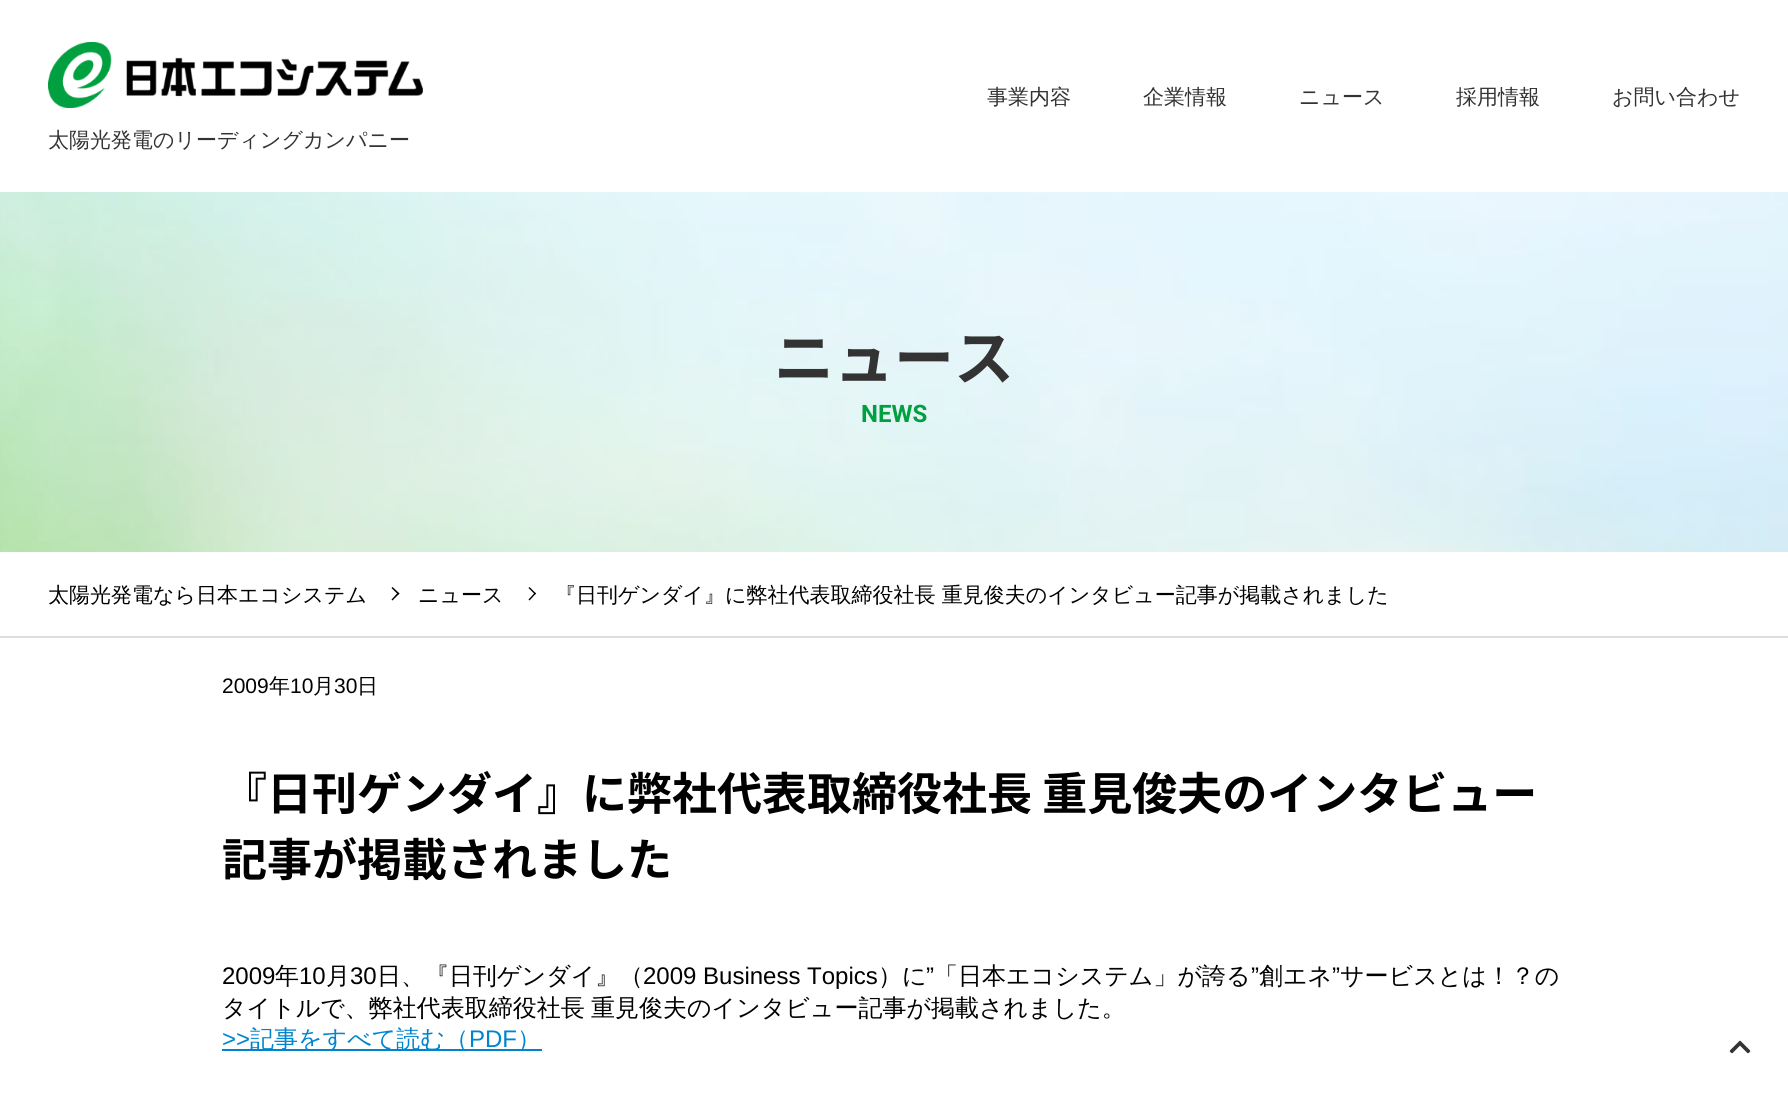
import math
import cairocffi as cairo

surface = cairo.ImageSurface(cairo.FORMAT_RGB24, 1788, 1096)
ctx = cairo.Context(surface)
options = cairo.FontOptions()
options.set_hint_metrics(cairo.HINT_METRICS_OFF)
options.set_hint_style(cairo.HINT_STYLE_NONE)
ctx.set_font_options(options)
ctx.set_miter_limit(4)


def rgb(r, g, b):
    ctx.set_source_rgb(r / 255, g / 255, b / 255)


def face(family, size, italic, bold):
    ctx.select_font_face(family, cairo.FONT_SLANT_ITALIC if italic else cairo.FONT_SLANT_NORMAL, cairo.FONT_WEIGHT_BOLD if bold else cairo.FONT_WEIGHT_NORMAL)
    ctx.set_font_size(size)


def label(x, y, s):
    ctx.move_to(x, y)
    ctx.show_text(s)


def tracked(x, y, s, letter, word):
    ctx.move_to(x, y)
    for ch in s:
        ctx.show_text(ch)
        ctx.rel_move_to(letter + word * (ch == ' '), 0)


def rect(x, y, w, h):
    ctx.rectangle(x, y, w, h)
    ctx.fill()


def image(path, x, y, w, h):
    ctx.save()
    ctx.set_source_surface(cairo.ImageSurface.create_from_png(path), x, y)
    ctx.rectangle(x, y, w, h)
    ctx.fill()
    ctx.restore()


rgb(255, 255, 255)
ctx.paint()
face('WenQuanYi Zen Hei Medium', 21, 0, 0)
rgb(51, 51, 51)
label(987, 104, '事業内容')
label(1143, 104, '企業情報')
label(1299, 104, 'ニュース')
label(1456, 104, '採用情報')
label(1612, 104, 'お問い合わせ')
image('image0.png', 48, 42, 375, 66)
label(48, 147, '太陽光発電のリーディングカンパニー')
image('image1.png', 0, 192, 1788, 360)
face('Noto Sans JP', 60, 0, 1)
label(774, 380, 'ニュース')
face('Roboto', 24, 0, 1)
rgb(0, 160, 64)
label(861, 422, 'NEWS')
rgb(221, 221, 221)
rect(0, 636, 1788, 2)
face('WenQuanYi Zen Hei Medium', 21, 0, 0)
rgb(0, 0, 0)
label(48, 602, '太陽光発電なら日本エコシステム')
ctx.new_path()
ctx.move_to(391.5, 588)
ctx.line_to(392.5, 587)
ctx.line_to(399.5, 593.5)
ctx.line_to(398, 594.5)
ctx.close_path()
ctx.fill()
ctx.new_path()
ctx.move_to(391.5, 599.5)
ctx.line_to(398, 592.5)
ctx.line_to(399.5, 593.5)
ctx.line_to(392.5, 600.5)
ctx.close_path()
ctx.fill()
label(418, 602, 'ニュース')
ctx.new_path()
ctx.move_to(528.5, 588)
ctx.line_to(529.5, 587)
ctx.line_to(536, 593.5)
ctx.line_to(535, 594.5)
ctx.close_path()
ctx.fill()
ctx.new_path()
ctx.move_to(528.5, 599.5)
ctx.line_to(535, 592.5)
ctx.line_to(536, 593.5)
ctx.line_to(529.5, 600.5)
ctx.close_path()
ctx.fill()
label(555, 602, '『日刊ゲンダイ』に弊社代表取締役社長 重見俊夫のインタビュー記事が掲載されました')
face('Liberation Sans', 21, 0, 0)
label(222, 693, '2009')
face('WenQuanYi Zen Hei Medium', 21, 0, 0)
label(269, 693, '年')
face('Liberation Sans', 21, 0, 0)
label(290, 693, '10')
face('WenQuanYi Zen Hei Medium', 21, 0, 0)
label(313, 693, '月')
face('Liberation Sans', 21, 0, 0)
label(334, 693, '30')
face('WenQuanYi Zen Hei Medium', 21, 0, 0)
label(357, 693, '日')
face('Noto Sans JP', 45, 0, 1)
label(222, 810, '『日刊ゲンダイ』に弊社代表取締役社長 重見俊夫のインタビュー')
label(222, 876, '記事が掲載されました')
face('Liberation Sans', 24, 0, 0)
label(222, 984, '2009')
face('WenQuanYi Zen Hei Medium', 24, 0, 0)
label(275, 984, '年')
face('Liberation Sans', 24, 0, 0)
label(299, 984, '10')
face('WenQuanYi Zen Hei Medium', 24, 0, 0)
label(326, 984, '月')
face('Liberation Sans', 24, 0, 0)
label(350, 984, '30')
face('WenQuanYi Zen Hei Medium', 24, 0, 0)
label(377, 984, '日、『日刊ゲンダイ』（')
face('Liberation Sans', 24, 0, 0)
label(643, 984, '2009 Business Topics')
face('WenQuanYi Zen Hei Medium', 24, 0, 0)
label(878, 984, '）に')
face('Liberation Sans', 24, 0, 0)
label(926, 984, '”')
face('WenQuanYi Zen Hei Medium', 24, 0, 0)
label(934, 984, '「日本エコシステム」が誇る')
face('Liberation Sans', 24, 0, 0)
label(1251, 984, '”')
face('WenQuanYi Zen Hei Medium', 24, 0, 0)
label(1259, 984, '創エネ')
face('Liberation Sans', 24, 0, 0)
label(1332, 984, '”')
face('WenQuanYi Zen Hei Medium', 24, 0, 0)
label(1340, 984, 'サービスとは！？の')
tracked(222, 1016, 'タイトルで、弊社代表取締役社長 重見俊夫のインタビュー記事が掲載されました。', 0, -1)
face('Liberation Sans', 24, 0, 0)
rgb(0, 132, 205)
label(222, 1047, '>>')
rect(222, 1049, 320, 2)
face('WenQuanYi Zen Hei Medium', 24, 0, 0)
label(250, 1047, '記事をすべて読む（')
face('Liberation Sans', 24, 0, 0)
label(469, 1047, 'PDF')
face('WenQuanYi Zen Hei Medium', 24, 0, 0)
label(517, 1047, '）')
image('image2.png', 1729, 1040, 22, 14)
surface.write_to_png('render.png')
